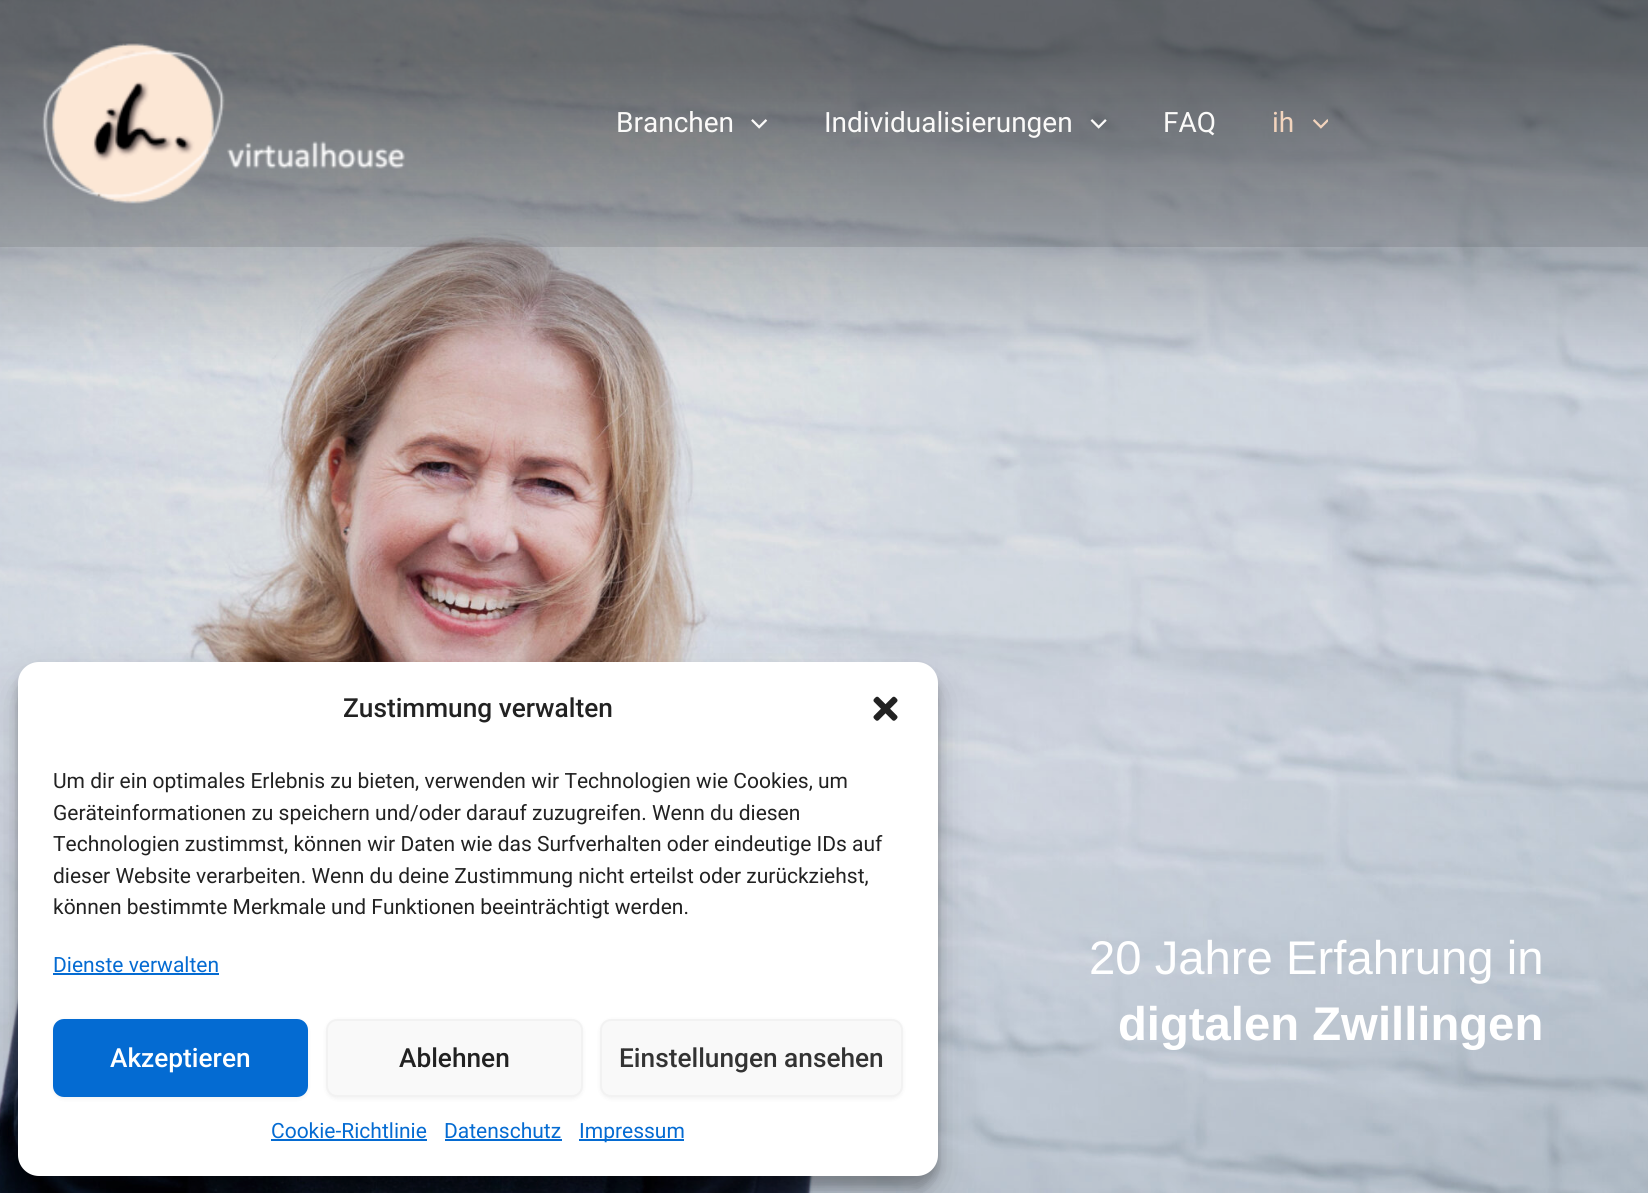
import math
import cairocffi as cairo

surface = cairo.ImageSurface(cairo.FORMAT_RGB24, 1648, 1193)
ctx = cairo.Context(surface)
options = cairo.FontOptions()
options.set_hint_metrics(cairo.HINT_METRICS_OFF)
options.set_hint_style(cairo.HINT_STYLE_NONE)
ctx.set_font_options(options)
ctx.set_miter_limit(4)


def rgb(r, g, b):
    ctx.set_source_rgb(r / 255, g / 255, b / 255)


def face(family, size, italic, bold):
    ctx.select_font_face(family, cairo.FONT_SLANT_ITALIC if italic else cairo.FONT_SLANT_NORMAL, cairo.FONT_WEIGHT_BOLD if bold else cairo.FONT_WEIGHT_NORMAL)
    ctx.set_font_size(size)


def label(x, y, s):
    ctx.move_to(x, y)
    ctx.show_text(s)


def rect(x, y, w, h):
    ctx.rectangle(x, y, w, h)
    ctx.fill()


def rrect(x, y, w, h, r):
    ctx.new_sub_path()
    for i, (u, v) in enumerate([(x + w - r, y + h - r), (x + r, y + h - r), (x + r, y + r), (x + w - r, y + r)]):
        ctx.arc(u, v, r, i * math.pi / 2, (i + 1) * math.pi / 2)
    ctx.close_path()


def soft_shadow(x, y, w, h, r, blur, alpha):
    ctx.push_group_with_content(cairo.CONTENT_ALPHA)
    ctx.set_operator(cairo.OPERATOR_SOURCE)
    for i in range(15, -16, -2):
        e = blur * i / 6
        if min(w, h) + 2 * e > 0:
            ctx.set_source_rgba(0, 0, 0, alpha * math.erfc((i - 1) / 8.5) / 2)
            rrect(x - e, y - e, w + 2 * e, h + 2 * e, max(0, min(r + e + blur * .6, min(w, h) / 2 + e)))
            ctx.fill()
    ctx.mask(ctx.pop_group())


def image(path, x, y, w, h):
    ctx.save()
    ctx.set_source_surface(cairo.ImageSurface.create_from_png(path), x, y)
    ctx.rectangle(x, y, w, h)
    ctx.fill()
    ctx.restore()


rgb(255, 255, 255)
ctx.paint()
image('image5.png', 0, 0, 1648, 1193)
rgb(0, 0, 0)
soft_shadow(18, 672, 920, 515, 21, 5, 0.23)
soft_shadow(18, 679, 920, 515, 21, 17.5, 0.19)
rgb(255, 255, 255)
rrect(18, 662, 920, 514, 21)
ctx.fill()
face('Roboto Medium', 26.25, 0, 0)
rgb(34, 34, 34)
label(343, 717, 'Zustimmung verwalten')
image('image0.png', 873, 696, 25, 25)
face('Roboto', 21, 0, 0)
label(53, 788, 'Um dir ein optimales Erlebnis zu bieten, verwenden wir Technologien wie Cookies, um')
label(53, 820, 'Geräteinformationen zu speichern und/oder darauf zuzugreifen. Wenn du diesen')
label(53, 851, 'Technologien zustimmst, können wir Daten wie das Surfverhalten oder eindeutige IDs auf')
label(53, 883, 'dieser Website verarbeiten. Wenn du deine Zustimmung nicht erteilst oder zurückziehst,')
label(53, 914, 'können bestimmte Merkmale und Funktionen beeinträchtigt werden.')
rgb(4, 107, 210)
label(53, 972, 'Dienste verwalten')
rect(53, 973, 166, 2)
rgb(0, 0, 0)
soft_shadow(53, 1020, 255, 79, 11, 2, 0.05)
rgb(4, 107, 210)
rrect(54, 1020, 253, 76, 10)
ctx.fill_preserve()
ctx.stroke()
face('Roboto Medium', 26.25, 0, 0)
rgb(255, 255, 255)
label(110, 1067, 'Akzeptieren')
rgb(0, 0, 0)
soft_shadow(326, 1020, 257, 79, 11, 2, 0.05)
rgb(249, 249, 249)
rrect(327, 1020, 255, 76, 10)
ctx.fill_preserve()
rgb(242, 242, 242)
ctx.stroke()
rgb(34, 34, 34)
label(399, 1067, 'Ablehnen')
rgb(0, 0, 0)
soft_shadow(600, 1020, 303, 79, 11, 2, 0.05)
rgb(249, 249, 249)
rrect(601, 1020, 301, 76, 10)
ctx.fill_preserve()
rgb(242, 242, 242)
ctx.stroke()
rgb(51, 51, 51)
label(619, 1067, 'Einstellungen ansehen')
face('Roboto', 21, 0, 0)
rgb(4, 107, 210)
label(271, 1138, 'Cookie-Richtlinie')
rect(271, 1139, 156, 2)
label(444, 1138, 'Datenschutz')
rect(445, 1139, 117, 2)
rect(579, 1139, 105, 2)
label(579, 1138, 'Impressum')
ctx.set_source_rgba(0, 0, 0, 0.1)
rect(0, 0, 1648, 247)
image('image1.png', 42, 43, 363, 161)
face('Roboto', 28, 0, 0)
rgb(251, 250, 249)
label(616, 132, 'Branchen')
image('image2.png', 751, 119, 17, 10)
label(824, 132, 'Individualisierungen')
image('image3.png', 1090, 119, 17, 10)
label(1163, 132, 'FAQ')
rgb(243, 212, 189)
label(1272, 132, 'ih')
image('image4.png', 1313, 119, 15, 10)
face('Liberation Sans', 47.25, 0, 0)
rgb(255, 255, 255)
label(1089, 974, '20 Jahre Erfahrung in')
face('Liberation Sans', 47.25, 0, 1)
label(1118, 1040, 'digtalen Zwillingen')
surface.write_to_png('render.png')
